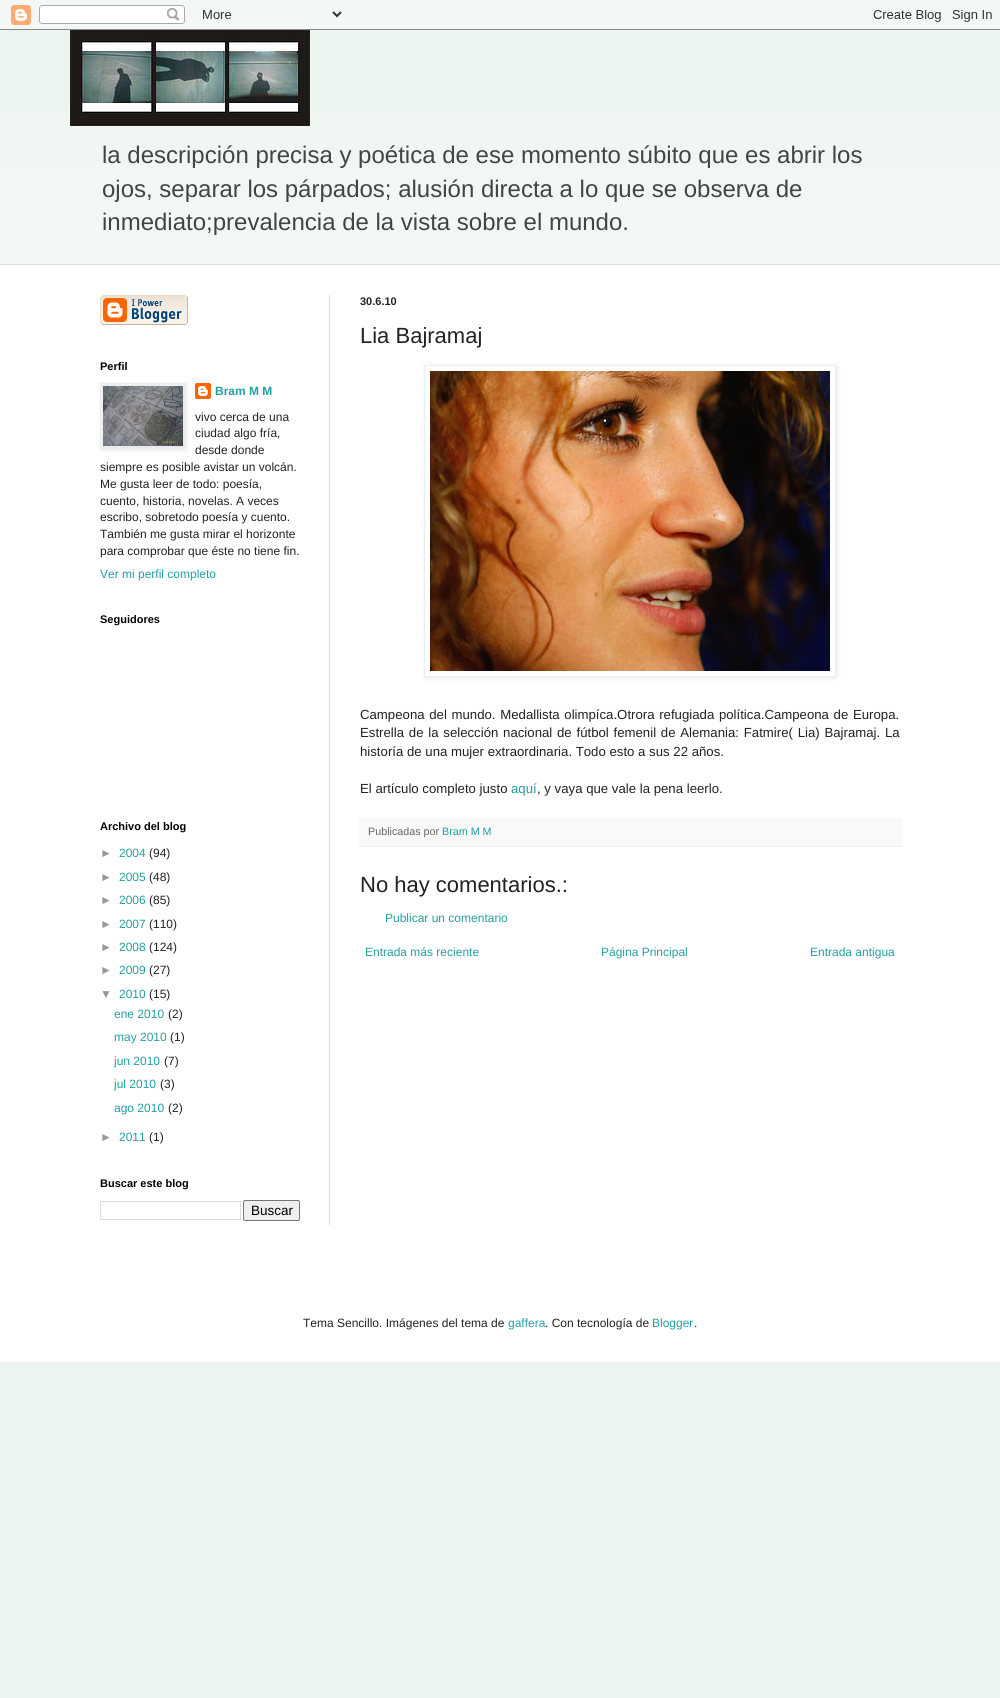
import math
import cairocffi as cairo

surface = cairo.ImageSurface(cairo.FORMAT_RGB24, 1000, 1698)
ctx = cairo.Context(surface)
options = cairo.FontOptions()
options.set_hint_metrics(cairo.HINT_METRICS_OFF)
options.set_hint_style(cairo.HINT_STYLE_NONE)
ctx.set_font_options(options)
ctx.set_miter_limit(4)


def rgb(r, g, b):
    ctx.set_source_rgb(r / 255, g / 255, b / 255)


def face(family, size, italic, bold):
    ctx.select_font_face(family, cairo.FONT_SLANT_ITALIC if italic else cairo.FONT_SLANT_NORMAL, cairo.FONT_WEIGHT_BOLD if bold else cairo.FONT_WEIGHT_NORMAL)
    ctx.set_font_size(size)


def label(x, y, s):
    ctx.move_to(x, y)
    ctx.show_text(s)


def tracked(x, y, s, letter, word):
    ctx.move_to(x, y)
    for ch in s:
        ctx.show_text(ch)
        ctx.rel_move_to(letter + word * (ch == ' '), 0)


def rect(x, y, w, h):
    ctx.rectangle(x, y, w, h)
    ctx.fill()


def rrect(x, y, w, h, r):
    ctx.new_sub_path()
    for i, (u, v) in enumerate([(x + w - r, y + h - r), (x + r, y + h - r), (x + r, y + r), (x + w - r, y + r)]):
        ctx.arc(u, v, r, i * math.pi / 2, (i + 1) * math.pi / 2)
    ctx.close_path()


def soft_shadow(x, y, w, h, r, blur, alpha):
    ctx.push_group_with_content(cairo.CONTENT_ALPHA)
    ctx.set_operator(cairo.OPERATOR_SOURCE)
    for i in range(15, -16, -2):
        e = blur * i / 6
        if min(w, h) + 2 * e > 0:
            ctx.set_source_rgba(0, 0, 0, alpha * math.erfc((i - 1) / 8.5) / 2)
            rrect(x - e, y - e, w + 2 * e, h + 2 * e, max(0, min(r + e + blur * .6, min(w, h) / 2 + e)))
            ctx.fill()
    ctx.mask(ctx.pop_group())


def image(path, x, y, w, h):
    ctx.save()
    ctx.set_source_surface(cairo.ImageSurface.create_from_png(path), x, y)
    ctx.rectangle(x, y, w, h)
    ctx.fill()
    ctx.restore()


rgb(235, 244, 238)
ctx.paint()
image('image0.png', 0, 0, 1000, 30)
image('image1.png', 0, 110, 1000, 154)
image('image2.png', 70, 30, 240, 96)
face('Liberation Sans', 24, 0, 0)
rgb(68, 68, 68)
label(102, 163, 'la descripción precisa y poética de ese momento súbito que es abrir los')
label(102, 197, 'ojos, separar los párpados; alusión directa a lo que se observa de')
label(102, 230, 'inmediato;prevalencia de la vista sobre el mundo.')
rgb(255, 255, 255)
rect(0, 265, 1000, 1097)
rgb(221, 221, 221)
rect(0, 264, 1000, 1)
rect(329, 295, 1, 930)
image('image3.png', 100, 295, 88, 30)
face('Liberation Sans', 11, 0, 1)
rgb(0, 0, 0)
label(100, 370, 'Perfil')
image('image5.png', 195, 383, 16, 16)
rgb(0, 0, 0)
soft_shadow(101, 384, 86, 66, 0, 2.5, 0.1)
ctx.rectangle(100.5, 383.5, 85, 65)
rgb(238, 238, 238)
ctx.set_line_width(1)
ctx.stroke()
image('image4.png', 103, 386, 80, 60)
face('Liberation Sans', 12, 0, 1)
rgb(36, 159, 163)
label(215, 395, 'Bram M M')
face('Liberation Sans', 12, 0, 0)
rgb(34, 34, 34)
label(195, 421, 'vivo cerca de una')
label(195, 437, 'ciudad algo fría,')
label(195, 454, 'desde donde')
label(100, 471, 'siempre es posible avistar un volcán.')
label(100, 488, 'Me gusta leer de todo: poesía,')
label(100, 505, 'cuento, historia, novelas. A veces')
label(100, 521, 'escribo, sobretodo poesía y cuento.')
label(100, 538, 'También me gusta mirar el horizonte')
label(100, 555, 'para comprobar que éste no tiene fin.')
rgb(36, 159, 163)
label(100, 578, 'Ver mi perfil completo')
face('Liberation Sans', 11, 0, 1)
rgb(0, 0, 0)
label(100, 623, 'Seguidores')
label(100, 830, 'Archivo del blog')
face('Liberation Sans', 12, 0, 0)
rgb(153, 153, 153)
label(100, 857, '►')
rgb(36, 159, 163)
label(119, 857, '2004')
rgb(34, 34, 34)
label(149, 857, '(94)')
rgb(153, 153, 153)
label(100, 881, '►')
rgb(36, 159, 163)
label(119, 881, '2005')
rgb(34, 34, 34)
label(149, 881, '(48)')
rgb(153, 153, 153)
label(100, 904, '►')
rgb(36, 159, 163)
label(119, 904, '2006')
rgb(34, 34, 34)
label(149, 904, '(85)')
rgb(153, 153, 153)
label(100, 928, '►')
rgb(36, 159, 163)
label(119, 928, '2007')
rgb(34, 34, 34)
label(149, 928, '(110)')
rgb(153, 153, 153)
label(100, 951, '►')
rgb(36, 159, 163)
label(119, 951, '2008')
rgb(34, 34, 34)
label(149, 951, '(124)')
rgb(153, 153, 153)
label(100, 974, '►')
rgb(36, 159, 163)
label(119, 974, '2009')
rgb(34, 34, 34)
label(149, 974, '(27)')
rgb(153, 153, 153)
label(100, 998, '▼')
rgb(36, 159, 163)
label(119, 998, '2010')
rgb(34, 34, 34)
label(149, 998, '(15)')
rgb(36, 159, 163)
label(114, 1018, 'ene 2010')
rgb(34, 34, 34)
label(168, 1018, '(2)')
rgb(36, 159, 163)
label(114, 1041, 'may 2010')
rgb(34, 34, 34)
label(170, 1041, '(1)')
rgb(36, 159, 163)
label(114, 1065, 'jun 2010')
rgb(34, 34, 34)
label(164, 1065, '(7)')
rgb(36, 159, 163)
label(114, 1088, 'jul 2010')
rgb(34, 34, 34)
label(160, 1088, '(3)')
rgb(36, 159, 163)
label(114, 1112, 'ago 2010')
rgb(34, 34, 34)
label(168, 1112, '(2)')
rgb(153, 153, 153)
label(100, 1141, '►')
rgb(36, 159, 163)
label(119, 1141, '2011')
rgb(34, 34, 34)
label(149, 1141, '(1)')
face('Liberation Sans', 11, 0, 1)
rgb(0, 0, 0)
label(100, 1187, 'Buscar este blog')
ctx.rectangle(100.5, 1201.5, 140, 18)
rgb(221, 221, 221)
ctx.stroke()
rgb(239, 239, 239)
rrect(243.5, 1200.5, 56, 20, 1.5)
ctx.fill_preserve()
rgb(118, 118, 118)
ctx.stroke()
face('Liberation Sans', 13.5, 0, 0)
rgb(0, 0, 0)
label(251, 1215, 'Buscar')
face('Liberation Sans', 11, 0, 1)
rgb(34, 34, 34)
label(360, 305, '30.6.10')
face('Liberation Sans', 22, 0, 0)
label(360, 343, 'Lia Bajramaj')
ctx.save()
ctx.set_fill_rule(cairo.FILL_RULE_EVEN_ODD)
ctx.new_path()
ctx.move_to(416, 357)
ctx.line_to(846, 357)
ctx.line_to(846, 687)
ctx.line_to(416, 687)
ctx.close_path()
ctx.move_to(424, 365)
ctx.line_to(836, 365)
ctx.line_to(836, 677)
ctx.line_to(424, 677)
ctx.close_path()
ctx.clip()
rgb(0, 0, 0)
soft_shadow(425, 366, 412, 312, 0, 2.5, 0.1)
ctx.restore()
ctx.rectangle(424.5, 365.5, 411, 311)
rgb(238, 238, 238)
ctx.stroke()
image('image6.png', 430, 371, 400, 300)
face('Liberation Sans', 13.2, 0, 0)
rgb(34, 34, 34)
tracked(360, 719, 'Campeona del mundo. Medallista olimpíca.Otrora refugiada política.Campeona de Europa.', 0, 1)
tracked(360, 737, 'Estrella de la selección nacional de fútbol femenil de Alemania: Fatmire( Lia) Bajramaj. La', 0, 1.1)
label(360, 756, 'historía de una mujer extraordinaria. Todo esto a sus 22 años.')
label(360, 793, 'El artículo completo justo')
rgb(36, 159, 163)
label(511, 793, 'aquí')
rgb(34, 34, 34)
label(537, 793, ', y vaya que vale la pena leerlo.')
rgb(249, 249, 249)
rect(358, 818, 544, 28)
rgb(238, 238, 238)
rect(358, 846, 544, 1)
face('Liberation Sans', 10.75, 0, 0)
rgb(102, 102, 102)
label(368, 835, 'Publicadas por')
rgb(36, 159, 163)
label(442, 835, 'Bram M M')
face('Liberation Sans', 22, 0, 0)
rgb(34, 34, 34)
label(360, 892, 'No hay comentarios.:')
face('Liberation Sans', 12, 0, 0)
rgb(36, 159, 163)
label(385, 922, 'Publicar un comentario')
label(365, 956, 'Entrada más reciente')
label(601, 956, 'Página Principal')
label(810, 956, 'Entrada antigua')
rgb(34, 34, 34)
label(303, 1327, 'Tema Sencillo. Imágenes del tema de')
rgb(36, 159, 163)
label(508, 1327, 'gaffera')
rgb(34, 34, 34)
label(545, 1327, '. Con tecnología de')
rgb(36, 159, 163)
label(652, 1327, 'Blogger')
rgb(34, 34, 34)
label(694, 1327, '.')
surface.write_to_png('render.png')
